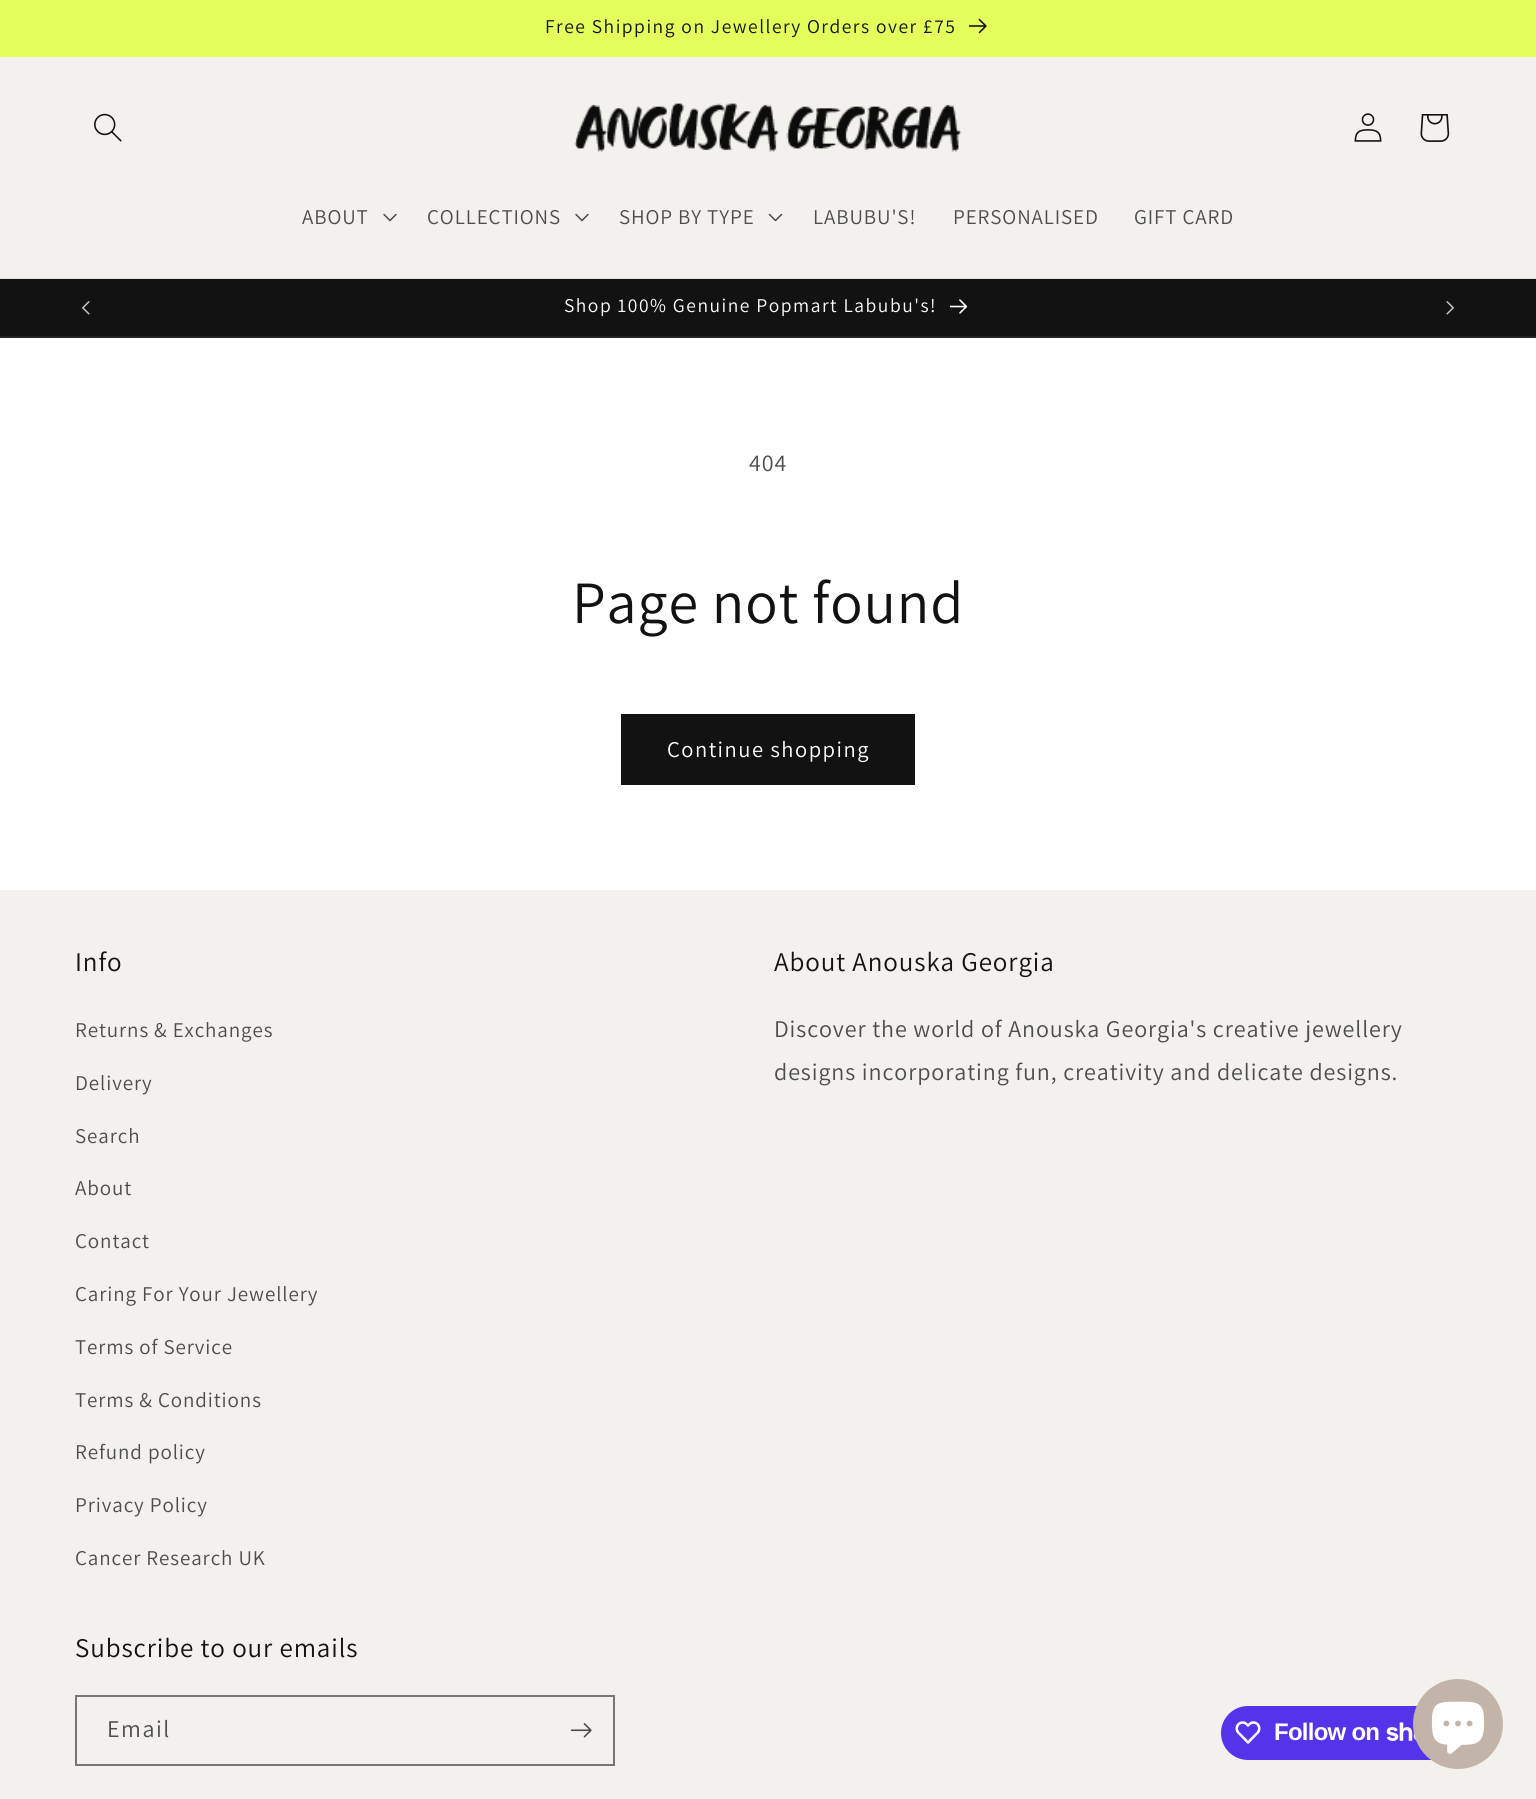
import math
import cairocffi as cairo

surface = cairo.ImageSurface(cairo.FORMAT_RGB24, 1536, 1799)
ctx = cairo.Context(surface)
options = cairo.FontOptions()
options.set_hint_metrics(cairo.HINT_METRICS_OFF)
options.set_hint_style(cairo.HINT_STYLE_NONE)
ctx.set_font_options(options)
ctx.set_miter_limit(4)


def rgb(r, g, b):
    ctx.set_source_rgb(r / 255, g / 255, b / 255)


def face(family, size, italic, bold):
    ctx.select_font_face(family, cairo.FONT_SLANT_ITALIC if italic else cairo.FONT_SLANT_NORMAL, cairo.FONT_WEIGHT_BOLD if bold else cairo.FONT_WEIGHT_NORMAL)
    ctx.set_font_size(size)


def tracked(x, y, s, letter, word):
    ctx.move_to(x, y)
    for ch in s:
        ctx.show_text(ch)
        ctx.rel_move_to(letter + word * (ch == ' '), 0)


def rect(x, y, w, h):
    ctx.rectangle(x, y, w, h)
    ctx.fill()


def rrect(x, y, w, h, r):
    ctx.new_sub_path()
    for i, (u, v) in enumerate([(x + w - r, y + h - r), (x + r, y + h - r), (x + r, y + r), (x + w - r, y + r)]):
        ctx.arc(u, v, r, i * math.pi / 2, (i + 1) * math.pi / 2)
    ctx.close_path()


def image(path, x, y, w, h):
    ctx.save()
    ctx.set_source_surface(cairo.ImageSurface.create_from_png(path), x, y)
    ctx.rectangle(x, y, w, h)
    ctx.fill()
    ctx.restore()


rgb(255, 255, 255)
ctx.paint()
rgb(228, 255, 91)
rect(0, 0, 1536, 57)
face('Assistant', 19.5, 0, 0)
rgb(18, 18, 18)
tracked(545, 33, 'Free Shipping on Jewellery Orders over £75', 1.5, 0)
image('image0.png', 969, 18, 18, 16)
rgb(243, 241, 237)
rect(0, 57, 1536, 221)
rgb(225, 223, 219)
rect(0, 278, 1536, 1)
image('image1.png', 94, 113, 28, 29)
image('image2.png', 574, 103, 388, 49)
image('image3.png', 1354, 113, 28, 29)
image('image4.png', 1420, 114, 30, 28)
face('Assistant', 21, 0, 0)
rgb(77, 77, 77)
tracked(302, 224, 'ABOUT', 0.9, 0)
image('image5.png', 383, 213, 14, 9)
tracked(427, 224, 'COLLECTIONS', 0.9, 0)
image('image5.png', 575, 213, 14, 9)
tracked(619, 224, 'SHOP BY TYPE', 0.9, 0)
image('image6.png', 768, 213, 15, 9)
tracked(813, 224, 'LABUBU\'S!', 0.9, 0)
tracked(953, 224, 'PERSONALISED', 0.9, 0)
tracked(1134, 224, 'GIFT CARD', 0.9, 0)
rgb(18, 18, 18)
rect(0, 279, 1536, 57)
rgb(37, 37, 37)
rect(0, 336, 1536, 2)
image('image7.png', 82, 301, 8, 14)
face('Assistant', 19.5, 0, 0)
rgb(255, 255, 255)
tracked(564, 312, 'Shop 100% Genuine Popmart Labubu\'s!', 1.5, 0)
image('image8.png', 950, 299, 18, 15)
image('image9.png', 1446, 301, 8, 14)
face('Assistant', 24, 0, 0)
rgb(77, 77, 77)
tracked(749, 471, '404', 0.9, 0)
face('Assistant', 60, 0, 0)
rgb(18, 18, 18)
tracked(572, 623, 'Page not found', 0.9, 0)
rect(621, 714, 294, 71)
face('Assistant', 22.5, 0, 0)
rgb(255, 255, 255)
tracked(667, 757, 'Continue shopping', 1.5, 0)
rgb(243, 241, 237)
rect(0, 890, 1536, 909)
face('Assistant', 27, 0, 0)
rgb(18, 18, 18)
tracked(75, 971, 'Info', 0.9, 0)
face('Assistant', 21, 0, 0)
rgb(77, 77, 77)
tracked(75, 1037, 'Returns & Exchanges', 0.9, 0)
tracked(75, 1090, 'Delivery', 0.9, 0)
tracked(75, 1143, 'Search', 0.9, 0)
tracked(75, 1195, 'About', 0.9, 0)
tracked(75, 1248, 'Contact', 0.9, 0)
tracked(75, 1301, 'Caring For Your Jewellery', 0.9, 0)
tracked(75, 1354, 'Terms of Service', 0.9, 0)
tracked(75, 1407, 'Terms & Conditions', 0.9, 0)
tracked(75, 1459, 'Refund policy', 0.9, 0)
tracked(75, 1512, 'Privacy Policy', 0.9, 0)
tracked(75, 1565, 'Cancer Research UK', 0.9, 0)
face('Assistant', 27, 0, 0)
rgb(18, 18, 18)
tracked(774, 971, 'About Anouska Georgia', 0.9, 0)
face('Assistant', 24, 0, 0)
rgb(77, 77, 77)
tracked(774, 1037, 'Discover the world of Anouska Georgia\'s creative jewellery', 0.9, 0)
tracked(774, 1080, 'designs incorporating fun, creativity and delicate designs.', 0.9, 0)
face('Assistant', 27, 0, 0)
rgb(18, 18, 18)
tracked(75, 1657, 'Subscribe to our emails', 0.9, 0)
ctx.rectangle(76, 1696, 538, 69)
rgb(119, 118, 117)
ctx.stroke()
face('Assistant', 24, 0, 0)
rgb(77, 77, 77)
tracked(107, 1737, 'Email', 1.5, 0)
image('image10.png', 570, 1723, 22, 15)
rgb(84, 51, 235)
rrect(1221, 1706, 240, 54, 27)
ctx.fill()
image('image11.png', 1235, 1721, 26, 23)
face('Liberation Sans', 24, 0, 1)
rgb(255, 255, 255)
tracked(1274, 1740, 'Follow on', -0.75, 0)
image('image12.png', 1386, 1722, 31, 19)
rgb(194, 180, 169)
ctx.arc(1458, 1724, 45, 0, 2 * math.pi)
ctx.fill()
image('image13.png', 1431, 1701, 54, 53)
surface.write_to_png('render.png')
